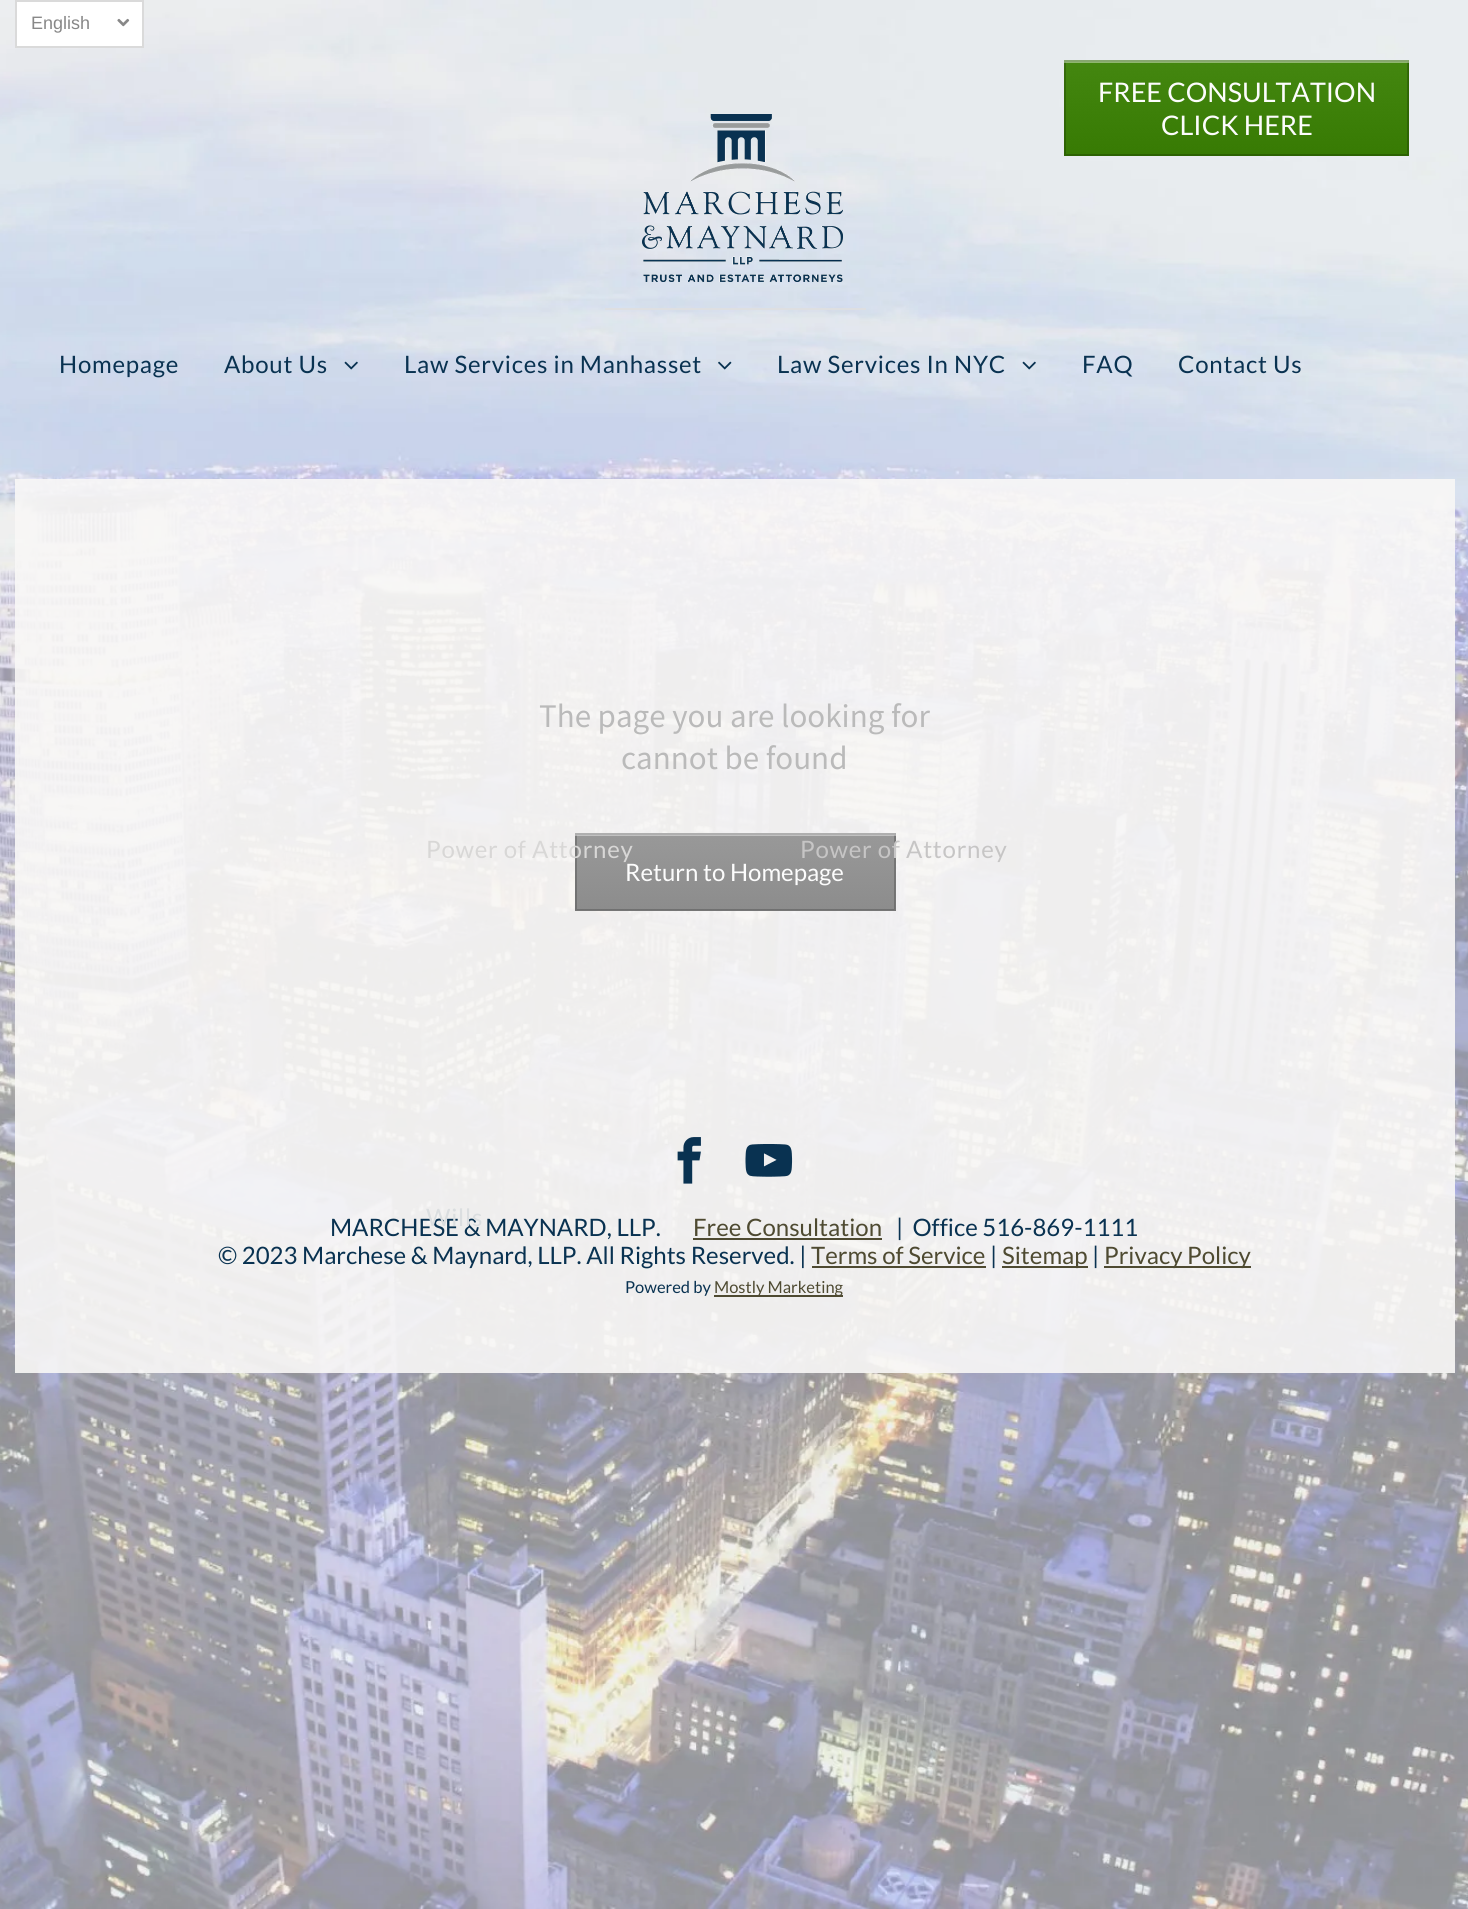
import math
import cairocffi as cairo

surface = cairo.ImageSurface(cairo.FORMAT_RGB24, 1468, 1909)
ctx = cairo.Context(surface)
options = cairo.FontOptions()
options.set_hint_metrics(cairo.HINT_METRICS_OFF)
options.set_hint_style(cairo.HINT_STYLE_NONE)
ctx.set_font_options(options)
ctx.set_miter_limit(4)


def rgb(r, g, b):
    ctx.set_source_rgb(r / 255, g / 255, b / 255)


def face(family, size, italic, bold):
    ctx.select_font_face(family, cairo.FONT_SLANT_ITALIC if italic else cairo.FONT_SLANT_NORMAL, cairo.FONT_WEIGHT_BOLD if bold else cairo.FONT_WEIGHT_NORMAL)
    ctx.set_font_size(size)


def label(x, y, s):
    ctx.move_to(x, y)
    ctx.show_text(s)


def tracked(x, y, s, letter, word):
    ctx.move_to(x, y)
    for ch in s:
        ctx.show_text(ch)
        ctx.rel_move_to(letter + word * (ch == ' '), 0)


def rect(x, y, w, h):
    ctx.rectangle(x, y, w, h)
    ctx.fill()


def image(path, x, y, w, h):
    ctx.save()
    ctx.set_source_surface(cairo.ImageSurface.create_from_png(path), x, y)
    ctx.rectangle(x, y, w, h)
    ctx.fill()
    ctx.restore()


rgb(255, 255, 255)
ctx.paint()
image('image0.png', 0, 0, 1468, 1909)
rgb(255, 255, 255)
ctx.rectangle(16, 1, 127, 46)
ctx.fill_preserve()
rgb(218, 218, 218)
ctx.stroke()
face('Liberation Sans', 18, 0, 0)
rgb(136, 136, 136)
label(31, 29, 'English')
image('image1.png', 117, 18, 13, 9)
rgb(222, 223, 225)
rect(605, 308, 261, 2)
image('image2.png', 642, 114, 201, 168)
face('Lato', 24, 0, 0)
rgb(9, 50, 81)
tracked(59, 373, 'Homepage', 0.75, 0)
tracked(224, 373, 'About Us', 0.75, 0)
image('image3.png', 344, 361, 14, 9)
tracked(404, 373, 'Law Services in Manhasset', 0.75, 0)
image('image4.png', 718, 361, 14, 9)
ctx.set_source_rgba(0.973, 0.969, 0.965, 0.9)
rect(15, 479, 1440, 627)
rgb(147, 147, 147)
rect(575, 833, 321, 78)
image('image7.png', 575, 833, 320, 77)
ctx.rectangle(576, 834, 319, 76)
ctx.set_source_rgba(0, 0, 0, 0.2)
ctx.stroke()
rgb(216, 215, 214)
tracked(426, 858, 'Power of Attorney', 0.75, 0)
ctx.set_source_rgba(0.973, 0.969, 0.965, 0.9)
rect(15, 1106, 1440, 267)
rgb(9, 50, 81)
label(330, 1236, 'MARCHESE & MAYNARD, LLP.')
rgb(219, 222, 224)
tracked(426, 1226, 'Wills', 0.75, 0)
rgb(9, 50, 81)
tracked(777, 373, 'Law Services In NYC', 0.75, 0)
image('image5.png', 1022, 361, 14, 9)
rgb(198, 197, 197)
tracked(800, 858, 'Power of Attorney', 0.75, 0)
rgb(9, 50, 81)
tracked(1082, 373, 'FAQ', 0.75, 0)
tracked(1178, 373, 'Contact Us', 0.75, 0)
rgb(58, 129, 3)
rect(1064, 60, 345, 96)
image('image6.png', 1064, 60, 344, 96)
ctx.rectangle(1065, 61, 343, 94)
ctx.set_source_rgba(0, 0, 0, 0.2)
ctx.stroke()
ctx.set_source_rgba(1, 1, 1, 0.4)
rect(1064, 60, 345, 3)
face('Lato', 27, 0, 0)
rgb(252, 252, 252)
label(1098, 102, 'FREE CONSULTATION')
label(1161, 135, 'CLICK HERE')
face('Source Sans Pro', 33, 0, 0)
rgb(186, 186, 186)
label(539, 727, 'The page you are looking for')
label(621, 769, 'cannot be found')
ctx.set_source_rgba(1, 1, 1, 0.4)
rect(575, 833, 321, 3)
face('Lato', 24, 0, 0)
rgb(252, 252, 252)
label(625, 881, 'Return to Homepage')
image('image8.png', 677, 1137, 24, 47)
image('image9.png', 745, 1144, 48, 33)
rgb(78, 74, 49)
label(693, 1236, 'Free Consultation')
rect(693, 1238, 189, 2)
rgb(9, 50, 81)
label(896, 1236, '|  Office 516-869-1111')
label(218, 1264, '© 2023 Marchese & Maynard, LLP. All Rights Reserved. |')
rgb(78, 74, 49)
label(811, 1264, 'Terms of Service')
rect(812, 1266, 174, 2)
rgb(9, 50, 81)
label(990, 1264, '|')
rgb(78, 74, 49)
rect(1002, 1266, 86, 2)
label(1002, 1264, 'Sitemap')
rgb(9, 50, 81)
label(1092, 1264, '|')
rgb(78, 74, 49)
rect(1104, 1266, 147, 2)
label(1104, 1264, 'Privacy Policy')
face('Lato', 16.5, 0, 0)
rgb(9, 50, 81)
label(625, 1293, 'Powered by')
rgb(78, 74, 49)
rect(714, 1295, 129, 2)
label(714, 1293, 'Mostly Marketing')
surface.write_to_png('render.png')
